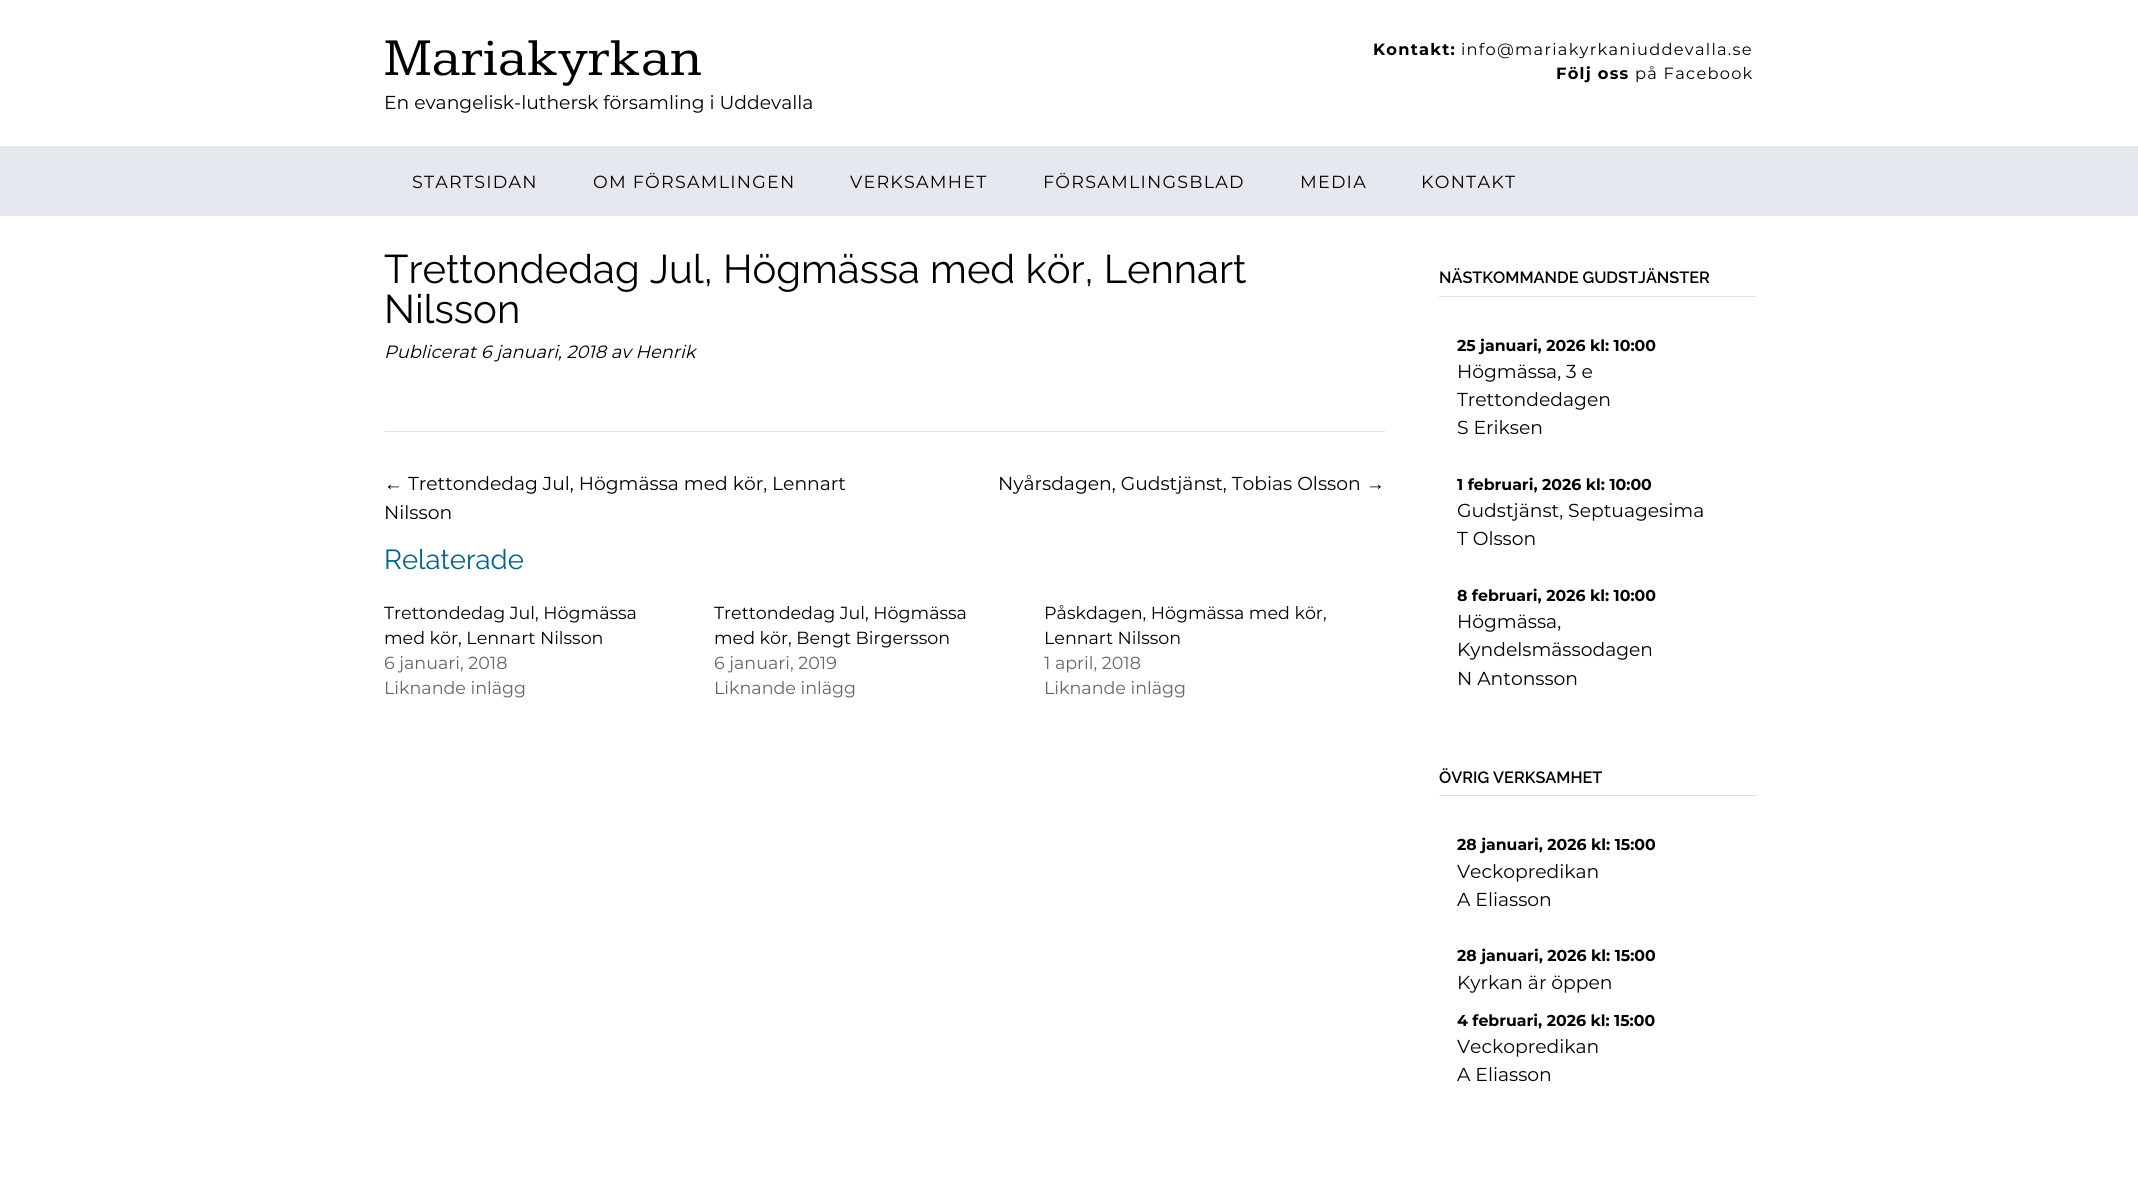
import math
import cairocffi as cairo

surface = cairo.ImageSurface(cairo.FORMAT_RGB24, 2138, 1188)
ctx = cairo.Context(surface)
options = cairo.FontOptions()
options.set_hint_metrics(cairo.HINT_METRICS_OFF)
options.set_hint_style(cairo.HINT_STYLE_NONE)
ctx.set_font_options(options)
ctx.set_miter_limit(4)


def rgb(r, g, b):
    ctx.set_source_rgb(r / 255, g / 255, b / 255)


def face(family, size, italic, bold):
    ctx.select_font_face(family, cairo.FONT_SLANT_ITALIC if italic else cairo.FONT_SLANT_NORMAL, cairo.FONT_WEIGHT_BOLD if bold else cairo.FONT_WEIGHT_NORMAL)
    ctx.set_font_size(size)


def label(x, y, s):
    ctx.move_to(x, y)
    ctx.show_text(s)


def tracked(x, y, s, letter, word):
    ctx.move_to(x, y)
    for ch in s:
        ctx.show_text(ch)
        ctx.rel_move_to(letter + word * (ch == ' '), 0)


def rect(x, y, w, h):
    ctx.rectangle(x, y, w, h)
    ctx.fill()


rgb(255, 255, 255)
ctx.paint()
face('Kameron', 55, 0, 0)
rgb(0, 0, 0)
label(384, 75, 'Mariakyrkan')
face('Montserrat', 18.75, 0, 0)
label(384, 109, 'En evangelisk-luthersk församling i Uddevalla')
face('Montserrat', 16.25, 0, 1)
tracked(1373, 55, 'Kontakt:', 1.25, 0)
face('Montserrat', 16.25, 0, 0)
tracked(1461, 55, 'info@mariakyrkaniuddevalla.se', 1.25, 0)
face('Montserrat', 16.25, 0, 1)
tracked(1556, 79, 'Följ oss', 1.25, 0)
face('Montserrat', 16.25, 0, 0)
tracked(1635, 79, 'på Facebook', 1.25, 0)
rgb(230, 232, 239)
rect(0, 146, 2138, 70)
face('Montserrat', 17.5, 0, 0)
rgb(0, 0, 0)
tracked(412, 188, 'STARTSIDAN', 1.25, 0)
tracked(593, 188, 'OM FÖRSAMLINGEN', 1.25, 0)
tracked(850, 188, 'VERKSAMHET', 1.25, 0)
tracked(1043, 188, 'FÖRSAMLINGSBLAD', 1.25, 0)
tracked(1300, 188, 'MEDIA', 1.25, 0)
tracked(1421, 188, 'KONTAKT', 1.25, 0)
rgb(224, 224, 224)
rect(385, 431, 1000, 1)
face('Raleway', 40, 0, 0)
rgb(0, 0, 0)
label(384, 283, 'Trettondedag Jul, Högmässa med kör, Lennart')
label(384, 323, 'Nilsson')
face('Montserrat', 17.8, 1, 0)
label(384, 358, 'Publicerat 6 januari, 2018 av Henrik')
face('Liberation Sans', 18.75, 0, 0)
label(384, 490, '←')
face('Montserrat', 18.75, 0, 0)
label(408, 490, 'Trettondedag Jul, Högmässa med kör, Lennart')
label(384, 519, 'Nilsson')
label(998, 490, 'Nyårsdagen, Gudstjänst, Tobias Olsson')
face('Liberation Sans', 18.75, 0, 0)
label(1366, 490, '→')
face('Raleway', 27.5, 0, 0)
rgb(0, 100, 137)
label(384, 569, 'Relaterade')
face('Montserrat', 17.5, 0, 0)
rgb(0, 0, 0)
label(384, 619, 'Trettondedag Jul, Högmässa')
label(384, 644, 'med kör, Lennart Nilsson')
rgb(102, 102, 102)
label(384, 669, '6 januari, 2018')
label(384, 694, 'Liknande inlägg')
rgb(0, 0, 0)
label(714, 619, 'Trettondedag Jul, Högmässa')
label(714, 644, 'med kör, Bengt Birgersson')
rgb(102, 102, 102)
label(714, 669, '6 januari, 2019')
label(714, 694, 'Liknande inlägg')
rgb(0, 0, 0)
label(1044, 619, 'Påskdagen, Högmässa med kör,')
label(1044, 644, 'Lennart Nilsson')
rgb(102, 102, 102)
label(1044, 669, '1 april, 2018')
label(1044, 694, 'Liknande inlägg')
rgb(224, 224, 224)
rect(1439, 296, 316, 1)
face('Raleway SemiBold', 16.25, 0, 0)
rgb(0, 0, 0)
label(1439, 283, 'NÄSTKOMMANDE GUDSTJÄNSTER')
face('Montserrat', 15.75, 0, 1)
label(1457, 351, '25 januari, 2026 kl: 10:00')
face('Montserrat', 18.75, 0, 0)
label(1457, 378, 'Högmässa, 3 e')
label(1457, 406, 'Trettondedagen')
label(1457, 434, 'S Eriksen')
face('Montserrat', 15.75, 0, 1)
label(1457, 490, '1 februari, 2026 kl: 10:00')
face('Montserrat', 18.75, 0, 0)
label(1457, 517, 'Gudstjänst, Septuagesima')
label(1457, 545, 'T Olsson')
face('Montserrat', 15.75, 0, 1)
label(1457, 601, '8 februari, 2026 kl: 10:00')
face('Montserrat', 18.75, 0, 0)
label(1457, 628, 'Högmässa,')
label(1457, 656, 'Kyndelsmässodagen')
label(1457, 685, 'N Antonsson')
rgb(224, 224, 224)
rect(1439, 795, 316, 1)
face('Raleway SemiBold', 16.25, 0, 0)
rgb(0, 0, 0)
label(1439, 783, 'ÖVRIG VERKSAMHET')
face('Montserrat', 15.75, 0, 1)
label(1457, 850, '28 januari, 2026 kl: 15:00')
face('Montserrat', 18.75, 0, 0)
label(1457, 878, 'Veckopredikan')
label(1457, 906, 'A Eliasson')
face('Montserrat', 15.75, 0, 1)
label(1457, 961, '28 januari, 2026 kl: 15:00')
face('Montserrat', 18.75, 0, 0)
label(1457, 989, 'Kyrkan är öppen')
face('Montserrat', 15.75, 0, 1)
label(1457, 1026, '4 februari, 2026 kl: 15:00')
face('Montserrat', 18.75, 0, 0)
label(1457, 1053, 'Veckopredikan')
label(1457, 1081, 'A Eliasson')
surface.write_to_png('render.png')
